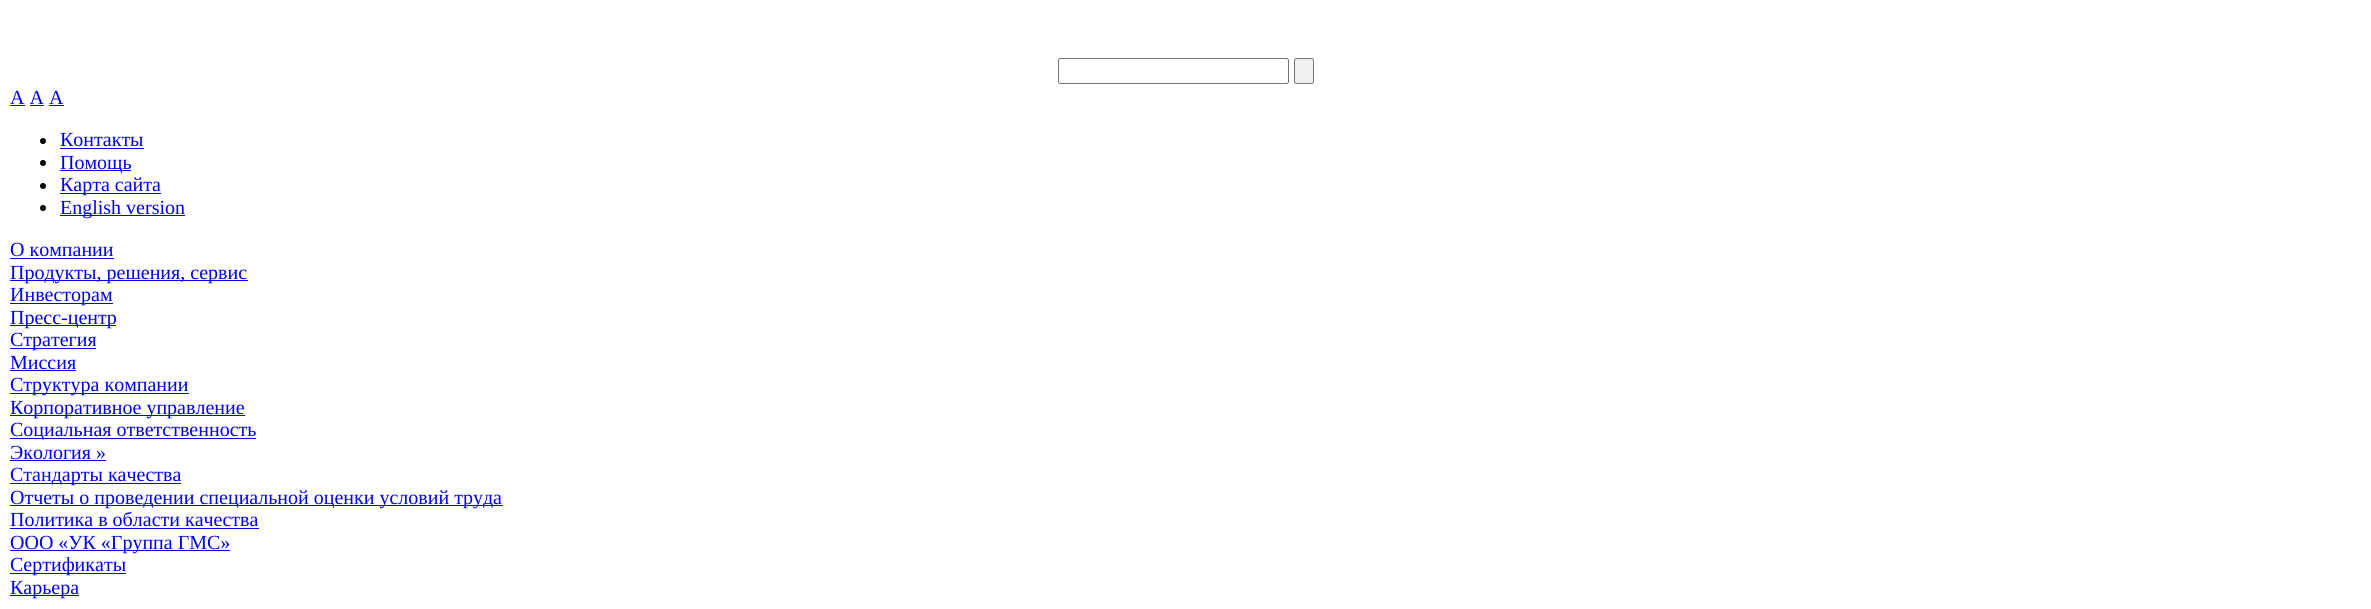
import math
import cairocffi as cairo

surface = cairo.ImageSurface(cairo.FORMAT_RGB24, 2371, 609)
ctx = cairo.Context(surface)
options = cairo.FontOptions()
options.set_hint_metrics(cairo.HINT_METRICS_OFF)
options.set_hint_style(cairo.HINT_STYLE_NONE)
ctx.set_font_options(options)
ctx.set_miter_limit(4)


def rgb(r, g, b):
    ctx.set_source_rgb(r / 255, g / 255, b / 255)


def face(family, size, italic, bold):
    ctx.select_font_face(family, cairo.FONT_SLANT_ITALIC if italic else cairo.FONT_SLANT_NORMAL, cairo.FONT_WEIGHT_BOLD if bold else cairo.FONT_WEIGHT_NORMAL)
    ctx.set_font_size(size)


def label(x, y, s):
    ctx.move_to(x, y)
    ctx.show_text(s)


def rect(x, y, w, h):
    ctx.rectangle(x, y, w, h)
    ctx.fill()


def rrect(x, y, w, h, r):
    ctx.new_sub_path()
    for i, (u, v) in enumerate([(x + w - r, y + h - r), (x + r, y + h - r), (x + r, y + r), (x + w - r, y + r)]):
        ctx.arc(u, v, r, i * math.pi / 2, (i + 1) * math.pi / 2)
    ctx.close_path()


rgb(255, 255, 255)
ctx.paint()
rrect(1058.5, 58.5, 230, 25, 2)
rgb(118, 118, 118)
ctx.set_line_width(1)
ctx.stroke()
rgb(239, 239, 239)
rrect(1294.5, 58.5, 19, 25, 2)
ctx.fill_preserve()
rgb(118, 118, 118)
ctx.stroke()
face('Liberation Serif', 20, 0, 0)
rgb(0, 0, 238)
label(10, 104, 'A A A')
rect(10, 105, 15, 1)
rect(30, 105, 14, 1)
rect(49, 105, 15, 1)
rgb(0, 0, 0)
ctx.new_path()
ctx.arc(43, 141, 3, 0, 2 * math.pi)
ctx.fill()
rgb(0, 0, 238)
label(60, 146, 'Контакты')
rect(60, 148, 84, 1)
rgb(0, 0, 0)
ctx.new_path()
ctx.arc(43, 163, 3, 0, 2 * math.pi)
ctx.fill()
rgb(0, 0, 238)
rect(60, 170, 71, 1)
label(60, 169, 'Помощь')
rgb(0, 0, 0)
ctx.new_path()
ctx.arc(43, 186, 3, 0, 2 * math.pi)
ctx.fill()
rgb(0, 0, 238)
rect(60, 193, 101, 1)
label(60, 191, 'Карта сайта')
rgb(0, 0, 0)
ctx.new_path()
ctx.arc(43, 208, 3, 0, 2 * math.pi)
ctx.fill()
rgb(0, 0, 238)
rect(60, 215, 125, 1)
label(60, 214, 'English version')
label(10, 256, 'О компании')
rect(10, 258, 104, 1)
rect(10, 280, 238, 1)
label(10, 279, 'Продукты, решения, сервис')
rect(10, 303, 103, 1)
label(10, 301, 'Инвесторам')
rect(10, 325, 106, 1)
label(10, 324, 'Пресс-центр')
rect(10, 348, 86, 1)
label(10, 346, 'Стратегия')
label(10, 369, 'Миссия')
rect(10, 370, 66, 1)
rect(10, 393, 179, 1)
label(10, 391, 'Структура компании')
rect(10, 415, 235, 1)
label(10, 414, 'Корпоративное управление')
rect(10, 438, 246, 1)
label(10, 436, 'Социальная ответственность')
label(10, 459, 'Экология »')
rect(10, 460, 96, 1)
rect(10, 483, 171, 1)
label(10, 481, 'Стандарты качества')
rect(10, 505, 493, 1)
label(10, 504, 'Отчеты о проведении специальной оценки условий труда')
label(10, 526, 'Политика в области качества')
rect(10, 528, 249, 1)
rect(10, 550, 220, 1)
label(10, 549, 'ООО «УК «Группа ГМС»')
rect(10, 573, 116, 1)
label(10, 571, 'Сертификаты')
rect(10, 595, 69, 1)
label(10, 594, 'Карьера')
surface.write_to_png('render.png')
